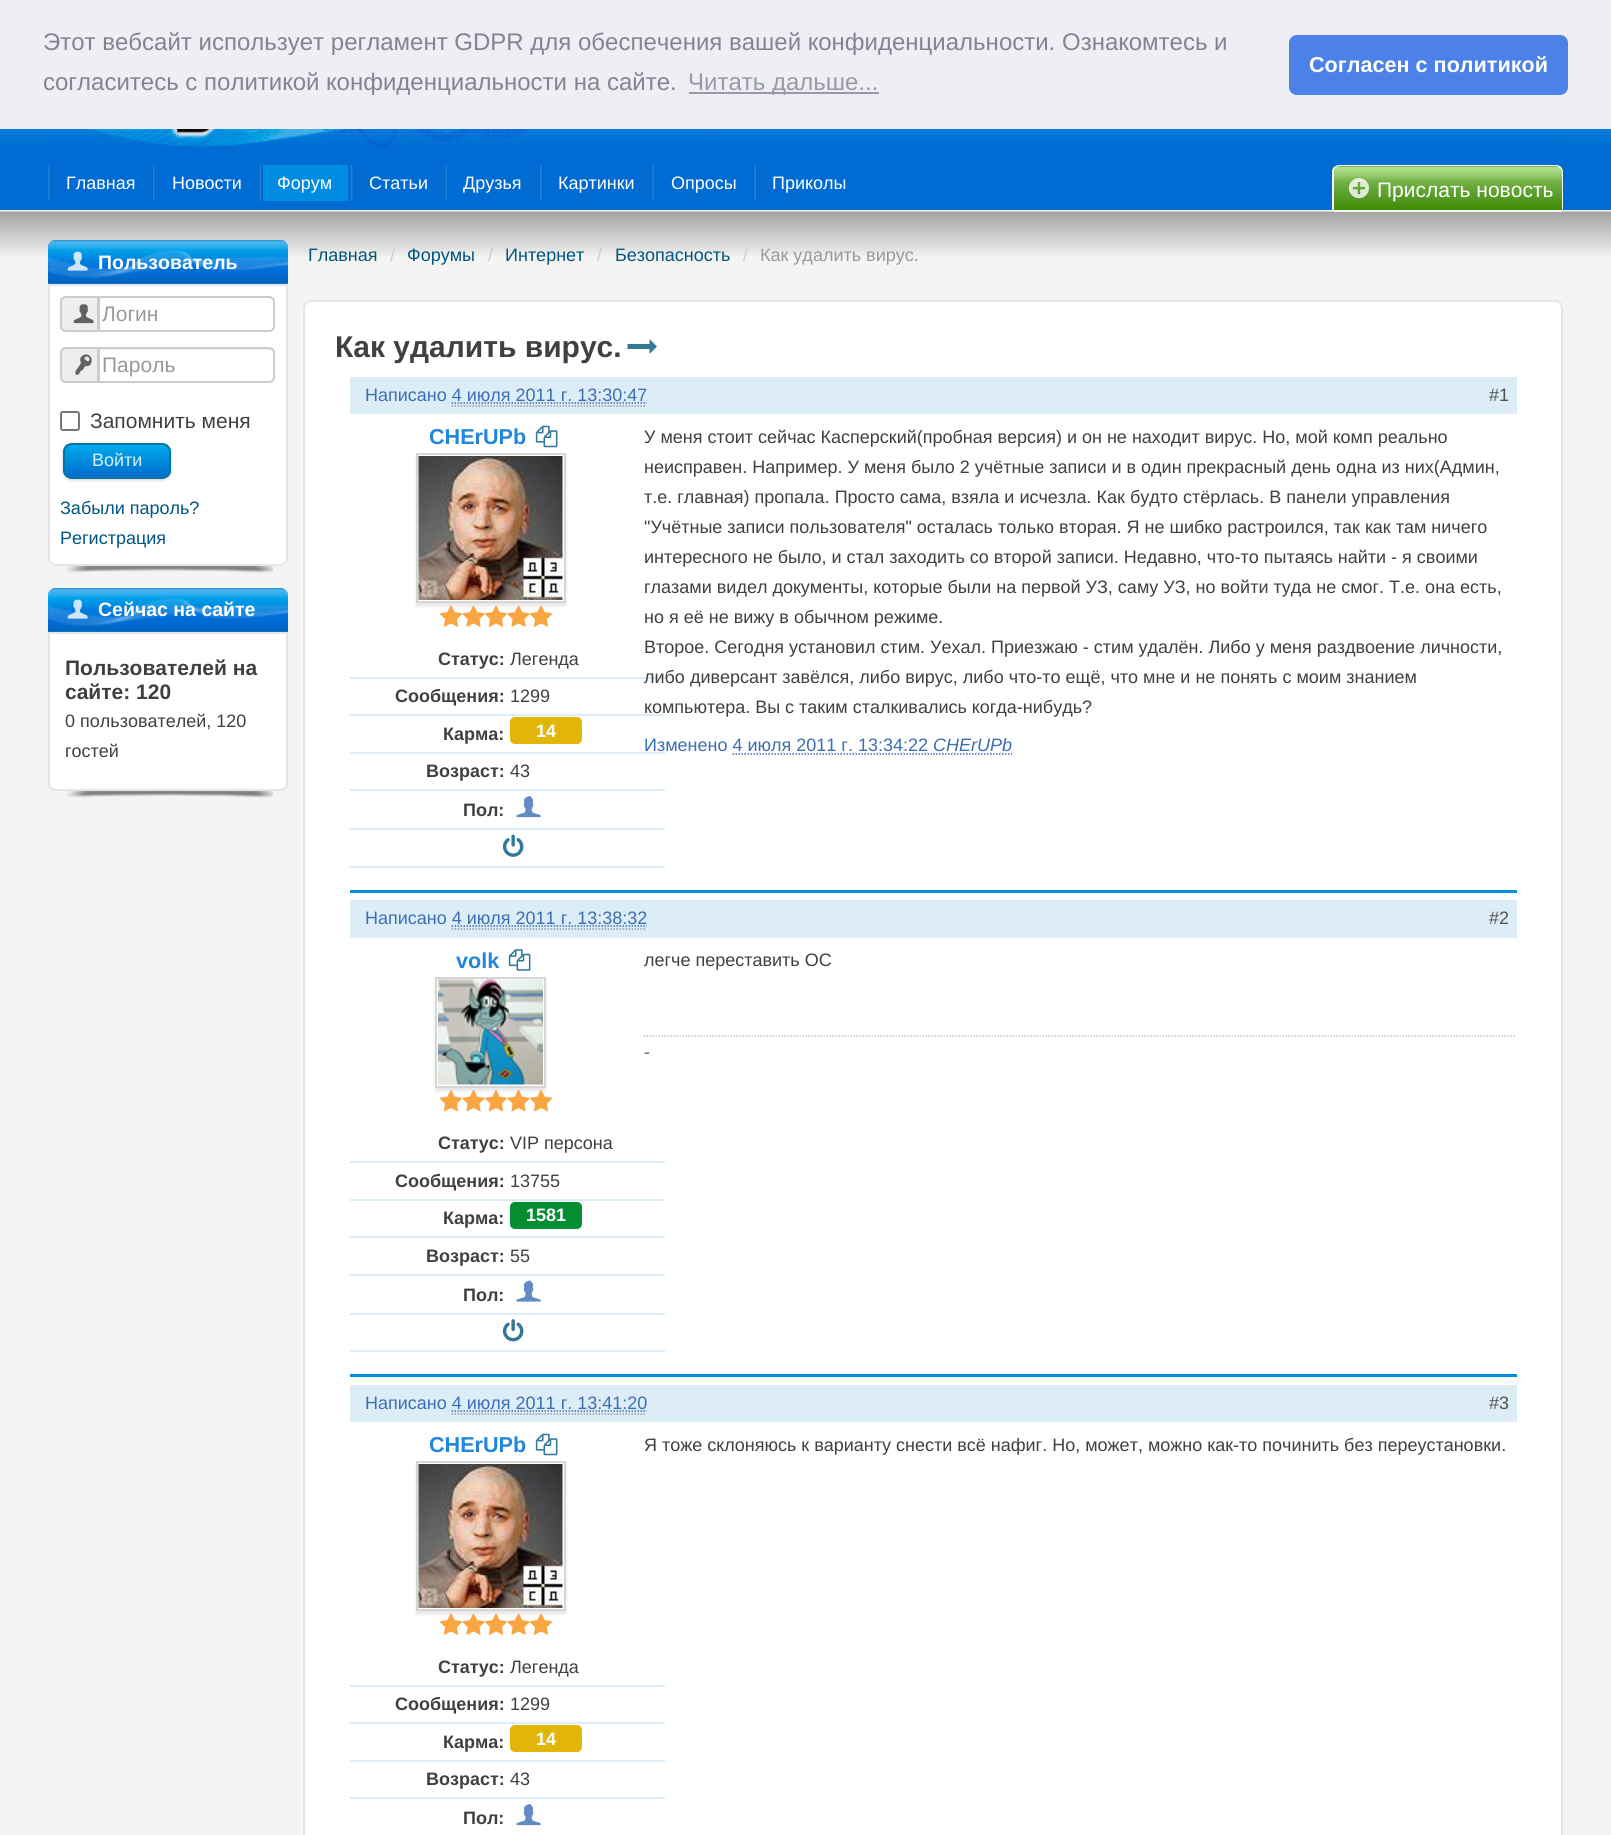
import math
import cairocffi as cairo

surface = cairo.ImageSurface(cairo.FORMAT_RGB24, 1611, 1835)
ctx = cairo.Context(surface)
options = cairo.FontOptions()
options.set_hint_metrics(cairo.HINT_METRICS_OFF)
options.set_hint_style(cairo.HINT_STYLE_NONE)
ctx.set_font_options(options)
ctx.set_miter_limit(4)


def rgb(r, g, b):
    ctx.set_source_rgb(r / 255, g / 255, b / 255)


def face(family, size, italic, bold):
    ctx.select_font_face(family, cairo.FONT_SLANT_ITALIC if italic else cairo.FONT_SLANT_NORMAL, cairo.FONT_WEIGHT_BOLD if bold else cairo.FONT_WEIGHT_NORMAL)
    ctx.set_font_size(size)


def label(x, y, s):
    ctx.move_to(x, y)
    ctx.show_text(s)


def rect(x, y, w, h):
    ctx.rectangle(x, y, w, h)
    ctx.fill()


def rrect(x, y, w, h, r):
    ctx.new_sub_path()
    for i, (u, v) in enumerate([(x + w - r, y + h - r), (x + r, y + h - r), (x + r, y + r), (x + w - r, y + r)]):
        ctx.arc(u, v, r, i * math.pi / 2, (i + 1) * math.pi / 2)
    ctx.close_path()


def soft_shadow(x, y, w, h, r, blur, alpha):
    ctx.push_group_with_content(cairo.CONTENT_ALPHA)
    ctx.set_operator(cairo.OPERATOR_SOURCE)
    for i in range(15, -16, -2):
        e = blur * i / 6
        if min(w, h) + 2 * e > 0:
            ctx.set_source_rgba(0, 0, 0, alpha * math.erfc((i - 1) / 8.5) / 2)
            rrect(x - e, y - e, w + 2 * e, h + 2 * e, max(0, min(r + e + blur * .6, min(w, h) / 2 + e)))
            ctx.fill()
    ctx.mask(ctx.pop_group())


def image(path, x, y, w, h):
    ctx.save()
    ctx.set_source_surface(cairo.ImageSurface.create_from_png(path), x, y)
    ctx.rectangle(x, y, w, h)
    ctx.fill()
    ctx.restore()


rgb(244, 244, 242)
ctx.paint()
rgb(237, 239, 245)
rect(0, 0, 1611, 129)
face('Liberation Sans', 24, 0, 0)
rgb(131, 131, 145)
label(43, 50, 'Этот вебсайт использует регламент GDPR для обеспечения вашей конфиденциальности. Ознакомтесь и')
label(43, 90, 'согласитесь с политикой конфиденциальности на сайте.')
rgb(152, 153, 165)
rect(689, 92, 190, 2)
label(688, 90, 'Читать дальше...')
rgb(75, 129, 232)
rrect(1289, 35, 279, 60, 8)
ctx.fill()
face('Liberation Sans', 21.6, 0, 1)
rgb(255, 255, 255)
label(1309, 72, 'Согласен с политикой')
image('image0.png', 0, 129, 1611, 81)
image('image1.png', 48, 129, 1515, 21)
image('image2.png', 48, 165, 2, 36)
face('Liberation Sans', 18, 0, 0)
label(66, 189, 'Главная')
image('image2.png', 153, 165, 2, 36)
label(172, 189, 'Новости')
image('image3.png', 259, 165, 2, 36)
rgb(0, 140, 225)
rect(263, 165, 85, 36)
rgb(255, 255, 255)
label(277, 189, 'Форум')
image('image2.png', 351, 165, 2, 36)
label(369, 189, 'Статьи')
image('image3.png', 445, 165, 2, 36)
label(463, 189, 'Друзья')
image('image2.png', 540, 165, 2, 36)
label(558, 189, 'Картинки')
image('image3.png', 652, 165, 2, 36)
label(671, 189, 'Опросы')
image('image3.png', 754, 165, 2, 36)
label(772, 189, 'Приколы')
image('image6.png', 0, 211, 1611, 45)
rgb(79, 126, 15)
ctx.new_path()
ctx.move_to(1340, 165)
ctx.line_to(1555, 165)
ctx.curve_to(1559.5, 165, 1563, 168.5, 1563, 173)
ctx.line_to(1563, 212)
ctx.line_to(1332, 212)
ctx.line_to(1332, 173)
ctx.curve_to(1332, 168.5, 1335.5, 165, 1340, 165)
ctx.close_path()
ctx.fill()
image('image4.png', 1332, 166, 231, 46)
rgb(255, 255, 255)
ctx.new_path()
ctx.move_to(1340, 165)
ctx.curve_to(1337, 165, 1335, 166, 1334, 167)
ctx.line_to(1335, 168)
ctx.curve_to(1336, 167, 1338, 166, 1340, 166)
ctx.line_to(1556, 166)
ctx.curve_to(1558, 166, 1559, 167, 1560, 168)
ctx.line_to(1561, 167)
ctx.curve_to(1560, 166, 1558, 165, 1556, 165)
ctx.close_path()
ctx.fill()
ctx.new_path()
ctx.move_to(1563, 212)
ctx.line_to(1563, 172)
ctx.curve_to(1563, 170, 1562, 168, 1561, 167)
ctx.line_to(1560, 168)
ctx.curve_to(1561, 169, 1562, 170, 1562, 172)
ctx.line_to(1562, 210)
ctx.close_path()
ctx.fill()
rgb(244, 244, 242)
ctx.new_path()
ctx.move_to(1563, 212)
ctx.line_to(1332, 212)
ctx.line_to(1334, 210)
ctx.line_to(1562, 210)
ctx.close_path()
ctx.fill()
rgb(255, 255, 255)
ctx.new_path()
ctx.move_to(1332, 212)
ctx.line_to(1334, 210)
ctx.line_to(1334, 172)
ctx.curve_to(1334, 171, 1334, 169, 1335, 168)
ctx.line_to(1334, 167)
ctx.curve_to(1333, 168, 1332, 170, 1332, 172)
ctx.close_path()
ctx.fill()
image('image5.png', 1348, 178, 21, 21)
face('Liberation Sans', 21, 0, 0)
label(1377, 197, 'Прислать новость')
image('image7.png', 66, 566, 207, 7)
rgb(0, 130, 200)
ctx.new_path()
ctx.move_to(56, 240)
ctx.line_to(280, 240)
ctx.curve_to(284.5, 240, 288, 243.5, 288, 248)
ctx.line_to(288, 284)
ctx.line_to(48, 284)
ctx.line_to(48, 248)
ctx.curve_to(48, 243.5, 51.5, 240, 56, 240)
ctx.close_path()
ctx.fill()
image('image8.png', 48, 240, 240, 44)
image('image9.png', 48, 250, 240, 28)
image('image10.png', 67, 251, 21, 20)
face('Liberation Sans', 19.5, 0, 1)
rgb(255, 255, 255)
label(98, 269, 'Пользователь')
ctx.new_path()
ctx.move_to(49, 285)
ctx.line_to(287, 285)
ctx.line_to(287, 558)
ctx.curve_to(287, 562, 284, 565, 280, 565)
ctx.line_to(56, 565)
ctx.curve_to(52, 565, 49, 562, 49, 558)
ctx.close_path()
ctx.fill_preserve()
rgb(229, 229, 229)
ctx.stroke()
rgb(238, 238, 238)
ctx.new_path()
ctx.move_to(66, 297)
ctx.line_to(98, 297)
ctx.line_to(98, 331)
ctx.line_to(66, 331)
ctx.curve_to(63, 331, 61, 329, 61, 326)
ctx.line_to(61, 302)
ctx.curve_to(61, 299, 63, 297, 66, 297)
ctx.close_path()
ctx.fill_preserve()
rgb(204, 204, 204)
ctx.stroke()
image('image11.png', 73, 304, 21, 20)
rgb(255, 255, 255)
ctx.new_path()
ctx.move_to(98, 296)
ctx.line_to(269, 296)
ctx.curve_to(272.5, 296, 275, 298.5, 275, 302)
ctx.line_to(275, 326)
ctx.curve_to(275, 329.5, 272.5, 332, 269, 332)
ctx.line_to(98, 332)
ctx.close_path()
ctx.fill()
rgb(236, 236, 236)
ctx.new_path()
ctx.move_to(99, 298)
ctx.line_to(268, 298)
ctx.curve_to(271, 298, 273, 301, 273, 303)
ctx.curve_to(273, 300, 271, 297, 268, 297)
ctx.line_to(99, 297)
ctx.close_path()
ctx.fill()
ctx.new_path()
ctx.move_to(99, 297)
ctx.line_to(269, 297)
ctx.curve_to(272, 297, 274, 299, 274, 302)
ctx.line_to(274, 326)
ctx.curve_to(274, 329, 272, 331, 269, 331)
ctx.line_to(99, 331)
ctx.close_path()
rgb(204, 204, 204)
ctx.stroke()
face('Liberation Sans', 21, 0, 0)
rgb(153, 153, 153)
label(102, 321, 'Логин')
rgb(238, 238, 238)
ctx.new_path()
ctx.move_to(66, 348)
ctx.line_to(98, 348)
ctx.line_to(98, 382)
ctx.line_to(66, 382)
ctx.curve_to(63, 382, 61, 380, 61, 377)
ctx.line_to(61, 353)
ctx.curve_to(61, 350, 63, 348, 66, 348)
ctx.close_path()
ctx.fill_preserve()
rgb(204, 204, 204)
ctx.stroke()
image('image12.png', 75, 354, 17, 21)
rgb(255, 255, 255)
ctx.new_path()
ctx.move_to(98, 347)
ctx.line_to(269, 347)
ctx.curve_to(272.5, 347, 275, 349.5, 275, 353)
ctx.line_to(275, 377)
ctx.curve_to(275, 380.5, 272.5, 383, 269, 383)
ctx.line_to(98, 383)
ctx.close_path()
ctx.fill()
rgb(236, 236, 236)
ctx.new_path()
ctx.move_to(99, 350)
ctx.line_to(268, 350)
ctx.line_to(272, 351)
ctx.line_to(273, 354)
ctx.curve_to(273, 351, 271, 348, 268, 348)
ctx.line_to(99, 348)
ctx.close_path()
ctx.fill()
ctx.new_path()
ctx.move_to(99, 348)
ctx.line_to(269, 348)
ctx.curve_to(272, 348, 274, 350, 274, 353)
ctx.line_to(274, 377)
ctx.curve_to(274, 380, 272, 382, 269, 382)
ctx.line_to(99, 382)
ctx.close_path()
rgb(204, 204, 204)
ctx.stroke()
rgb(153, 153, 153)
label(102, 372, 'Пароль')
rrect(61, 412, 18, 18, 2)
rgb(118, 118, 118)
ctx.stroke()
rgb(64, 64, 64)
label(90, 428, 'Запомнить меня')
rgb(0, 0, 0)
soft_shadow(63, 444, 108, 36, 9, 1.5, 0.2)
ctx.save()
rrect(63, 443, 108, 36, 9)
ctx.clip()
gradient = cairo.LinearGradient(65, 444, 65, 477)
gradient.add_color_stop_rgba(0, 0, 0.678, 0.933, 1)
gradient.add_color_stop_rgba(1, 0, 0.427, 0.8, 1)
ctx.set_source(gradient)
rect(63, 444, 108, 33)
ctx.restore()
rrect(64, 444, 106, 34, 8)
rgb(0, 118, 163)
ctx.stroke()
face('Liberation Sans', 18, 0, 0)
rgb(217, 238, 247)
label(92, 466, 'Войти')
rgb(0, 85, 128)
label(60, 514, 'Забыли пароль?')
label(60, 544, 'Регистрация')
image('image7.png', 66, 791, 207, 7)
rgb(0, 130, 200)
ctx.new_path()
ctx.move_to(56, 588)
ctx.line_to(280, 588)
ctx.curve_to(284.5, 588, 288, 591.5, 288, 596)
ctx.line_to(288, 632)
ctx.line_to(48, 632)
ctx.line_to(48, 596)
ctx.curve_to(48, 591.5, 51.5, 588, 56, 588)
ctx.close_path()
ctx.fill()
image('image13.png', 48, 588, 240, 44)
image('image9.png', 48, 598, 240, 28)
image('image10.png', 67, 599, 21, 20)
face('Liberation Sans', 19.5, 0, 1)
rgb(255, 255, 255)
label(98, 616, 'Сейчас на сайте')
ctx.new_path()
ctx.move_to(49, 633)
ctx.line_to(287, 633)
ctx.line_to(287, 783)
ctx.curve_to(287, 787, 284, 790, 280, 790)
ctx.line_to(56, 790)
ctx.curve_to(52, 790, 49, 787, 49, 783)
ctx.close_path()
ctx.fill_preserve()
rgb(229, 229, 229)
ctx.stroke()
face('Liberation Sans', 21, 0, 1)
rgb(64, 64, 64)
label(65, 675, 'Пользователей на')
label(65, 699, 'сайте: 120')
face('Liberation Sans', 18, 0, 0)
label(65, 727, '0 пользователей, 120')
label(65, 757, 'гостей')
rgb(0, 85, 128)
label(308, 261, 'Главная')
rgb(204, 204, 204)
label(390, 261, '/')
rgb(0, 85, 128)
label(407, 261, 'Форумы')
rgb(204, 204, 204)
label(488, 261, '/')
rgb(0, 85, 128)
label(505, 261, 'Интернет')
rgb(204, 204, 204)
label(597, 261, '/')
rgb(0, 85, 128)
label(615, 261, 'Безопасность')
rgb(204, 204, 204)
label(743, 261, '/')
rgb(153, 153, 153)
label(760, 261, 'Как удалить вирус.')
rgb(255, 255, 255)
rrect(304, 301, 1258, 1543, 7)
ctx.fill_preserve()
rgb(229, 229, 229)
ctx.stroke()
face('Liberation Sans', 30, 0, 1)
rgb(64, 64, 64)
label(335, 357, 'Как удалить вирус.')
rgb(51, 119, 153)
ctx.new_path()
ctx.move_to(649.5, 354)
ctx.line_to(649.5, 349)
ctx.line_to(627.5, 349)
ctx.line_to(627.5, 344)
ctx.line_to(649.5, 344)
ctx.line_to(649.5, 339)
ctx.line_to(657, 346.5)
ctx.close_path()
ctx.fill()
rgb(0, 140, 225)
rect(350, 890, 1167, 3)
rgb(221, 237, 247)
rect(350, 377, 1167, 37)
face('Liberation Sans', 18, 0, 0)
rgb(59, 110, 180)
label(365, 401, 'Написано 4 июля 2011 г. 13:30:47')
ctx.new_path()
ctx.move_to(451.5, 403)
ctx.line_to(647, 403)
ctx.set_line_width(1.5)
ctx.set_dash([1.5, 1.5])
ctx.stroke()
ctx.new_path()
ctx.move_to(451.5, 406)
ctx.line_to(646.5, 406)
rgb(153, 153, 153)
ctx.stroke()
rgb(81, 81, 81)
label(1489, 401, '#1')
face('Liberation Sans', 21.6, 0, 1)
rgb(33, 134, 221)
label(429, 444, 'CHErUPb')
image('image14.png', 535, 425, 23, 23)
rgb(0, 0, 0)
soft_shadow(416, 456, 150, 150, 0, 1.5, 0.1)
rgb(255, 255, 255)
ctx.rectangle(417, 454, 148, 148)
ctx.fill_preserve()
rgb(213, 213, 213)
ctx.set_line_width(2)
ctx.set_dash([])
ctx.stroke()
image('image15.png', 418, 456, 145, 144)
image('image16.png', 439, 605, 24, 22)
image('image17.png', 462, 605, 23, 22)
image('image18.png', 484, 605, 24, 22)
image('image17.png', 507, 605, 23, 22)
image('image18.png', 529, 605, 24, 22)
rgb(221, 237, 247)
rect(350, 677, 315, 2)
face('Liberation Sans', 18, 0, 1)
rgb(64, 64, 64)
label(438, 665, 'Статус:')
face('Liberation Sans', 18, 0, 0)
label(510, 665, 'Легенда')
rgb(221, 237, 247)
rect(350, 714, 315, 2)
face('Liberation Sans', 18, 0, 1)
rgb(64, 64, 64)
label(395, 702, 'Сообщения:')
face('Liberation Sans', 18, 0, 0)
label(510, 702, '1299')
rgb(221, 237, 247)
rect(350, 752, 315, 2)
face('Liberation Sans', 18, 0, 1)
rgb(64, 64, 64)
label(443, 740, 'Карма:')
rgb(225, 182, 8)
rrect(510, 717, 72, 27, 5)
ctx.fill()
rgb(255, 255, 255)
label(536, 737, '14')
rgb(221, 237, 247)
rect(350, 789, 315, 2)
rgb(64, 64, 64)
label(426, 777, 'Возраст:')
face('Liberation Sans', 18, 0, 0)
label(510, 777, '43')
rgb(221, 237, 247)
rect(350, 828, 315, 2)
face('Liberation Sans', 18, 0, 1)
rgb(64, 64, 64)
label(463, 816, 'Пол:')
image('image19.png', 516, 796, 25, 22)
rgb(221, 237, 247)
rect(350, 866, 315, 2)
image('image20.png', 502, 834, 22, 23)
face('Liberation Sans', 18, 0, 0)
rgb(64, 64, 64)
label(644, 443, 'У меня стоит сейчас Касперский(пробная версия) и он не находит вирус. Но, мой комп реально')
label(644, 473, 'неисправен. Например. У меня было 2 учётные записи и в один прекрасный день одна из них(Админ,')
label(644, 503, 'т.е. главная) пропала. Просто сама, взяла и исчезла. Как будто стёрлась. В панели управления')
label(644, 533, '"Учётные записи пользователя" осталась только вторая. Я не шибко растроился, так как там ничего')
label(644, 563, 'интересного не было, и стал заходить со второй записи. Недавно, что-то пытаясь найти - я своими')
label(644, 593, 'глазами видел документы, которые были на первой УЗ, саму УЗ, но войти туда не смог. Т.е. она есть,')
label(644, 623, 'но я её не вижу в обычном режиме.')
label(644, 653, 'Второе. Сегодня установил стим. Уехал. Приезжаю - стим удалён. Либо у меня раздвоение личности,')
label(644, 683, 'либо диверсант завёлся, либо вирус, либо что-то ещё, что мне и не понять с моим знанием')
label(644, 713, 'компьютера. Вы с таким сталкивались когда-нибудь?')
rgb(59, 110, 180)
label(644, 751, 'Изменено 4 июля 2011 г. 13:34:22')
face('Liberation Sans', 18, 1, 0)
label(933, 751, 'CHErUPb')
ctx.new_path()
ctx.move_to(732.5, 754)
ctx.line_to(933, 754)
ctx.set_line_width(1.5)
ctx.set_dash([1.5, 1.5])
ctx.stroke()
ctx.new_path()
ctx.move_to(933, 754)
ctx.line_to(1012, 754)
ctx.stroke()
rgb(0, 140, 225)
rect(350, 1374, 1167, 3)
rgb(221, 237, 247)
rect(350, 900, 1167, 38)
face('Liberation Sans', 18, 0, 0)
rgb(59, 110, 180)
label(365, 924, 'Написано 4 июля 2011 г. 13:38:32')
ctx.new_path()
ctx.move_to(451.5, 926)
ctx.line_to(647, 926)
ctx.stroke()
ctx.new_path()
ctx.move_to(451.5, 929)
ctx.line_to(646.5, 929)
rgb(153, 153, 153)
ctx.stroke()
rgb(81, 81, 81)
label(1489, 924, '#2')
face('Liberation Sans', 21.6, 0, 1)
rgb(33, 134, 221)
label(456, 968, 'volk')
image('image21.png', 508, 949, 23, 22)
rgb(0, 0, 0)
soft_shadow(435, 980, 111, 111, 0, 1.5, 0.1)
rgb(255, 255, 255)
ctx.rectangle(436, 978, 109, 109)
ctx.fill_preserve()
rgb(213, 213, 213)
ctx.set_line_width(2)
ctx.set_dash([])
ctx.stroke()
image('image22.png', 438, 979, 105, 106)
image('image23.png', 439, 1090, 24, 22)
image('image24.png', 462, 1090, 23, 22)
image('image25.png', 484, 1090, 24, 22)
image('image24.png', 507, 1090, 23, 22)
image('image26.png', 529, 1090, 24, 22)
rgb(221, 237, 247)
rect(350, 1161, 315, 2)
face('Liberation Sans', 18, 0, 1)
rgb(64, 64, 64)
label(438, 1149, 'Статус:')
face('Liberation Sans', 18, 0, 0)
label(510, 1149, 'VIP персона')
rgb(221, 237, 247)
rect(350, 1199, 315, 2)
face('Liberation Sans', 18, 0, 1)
rgb(64, 64, 64)
label(395, 1187, 'Сообщения:')
face('Liberation Sans', 18, 0, 0)
label(510, 1187, '13755')
rgb(221, 237, 247)
rect(350, 1236, 315, 2)
face('Liberation Sans', 18, 0, 1)
rgb(64, 64, 64)
label(443, 1224, 'Карма:')
rgb(5, 141, 50)
rrect(510, 1202, 72, 27, 5)
ctx.fill()
rgb(255, 255, 255)
label(526, 1221, '1581')
rgb(221, 237, 247)
rect(350, 1274, 315, 2)
rgb(64, 64, 64)
label(426, 1262, 'Возраст:')
face('Liberation Sans', 18, 0, 0)
label(510, 1262, '55')
rgb(221, 237, 247)
rect(350, 1313, 315, 2)
face('Liberation Sans', 18, 0, 1)
rgb(64, 64, 64)
label(463, 1301, 'Пол:')
image('image27.png', 516, 1280, 25, 22)
rgb(221, 237, 247)
rect(350, 1350, 315, 2)
image('image28.png', 502, 1319, 22, 23)
face('Liberation Sans', 18, 0, 0)
rgb(64, 64, 64)
label(644, 966, 'легче переставить ОС')
ctx.new_path()
ctx.move_to(643.5, 1036)
ctx.line_to(1516.5, 1036)
rgb(194, 194, 194)
ctx.set_line_width(1.5)
ctx.set_dash([1.5, 1.5])
ctx.stroke()
rgb(102, 102, 102)
label(644, 1058, '-')
rgb(221, 237, 247)
rect(350, 1385, 1167, 37)
rgb(59, 110, 180)
label(365, 1409, 'Написано 4 июля 2011 г. 13:41:20')
ctx.new_path()
ctx.move_to(451.5, 1411)
ctx.line_to(647, 1411)
ctx.stroke()
ctx.new_path()
ctx.move_to(451.5, 1414)
ctx.line_to(646.5, 1414)
rgb(153, 153, 153)
ctx.stroke()
rgb(81, 81, 81)
label(1489, 1409, '#3')
face('Liberation Sans', 21.6, 0, 1)
rgb(33, 134, 221)
label(429, 1452, 'CHErUPb')
image('image14.png', 535, 1433, 23, 23)
rgb(0, 0, 0)
soft_shadow(416, 1464, 150, 150, 0, 1.5, 0.1)
rgb(255, 255, 255)
ctx.rectangle(417, 1462, 148, 148)
ctx.fill_preserve()
rgb(213, 213, 213)
ctx.set_line_width(2)
ctx.set_dash([])
ctx.stroke()
image('image15.png', 418, 1464, 145, 144)
image('image16.png', 439, 1613, 24, 22)
image('image17.png', 462, 1613, 23, 22)
image('image18.png', 484, 1613, 24, 22)
image('image17.png', 507, 1613, 23, 22)
image('image18.png', 529, 1613, 24, 22)
rgb(221, 237, 247)
rect(350, 1685, 315, 2)
face('Liberation Sans', 18, 0, 1)
rgb(64, 64, 64)
label(438, 1673, 'Статус:')
face('Liberation Sans', 18, 0, 0)
label(510, 1673, 'Легенда')
rgb(221, 237, 247)
rect(350, 1722, 315, 2)
face('Liberation Sans', 18, 0, 1)
rgb(64, 64, 64)
label(395, 1710, 'Сообщения:')
face('Liberation Sans', 18, 0, 0)
label(510, 1710, '1299')
rgb(221, 237, 247)
rect(350, 1760, 315, 2)
face('Liberation Sans', 18, 0, 1)
rgb(64, 64, 64)
label(443, 1748, 'Карма:')
rgb(225, 182, 8)
rrect(510, 1725, 72, 27, 5)
ctx.fill()
rgb(255, 255, 255)
label(536, 1745, '14')
rgb(221, 237, 247)
rect(350, 1797, 315, 2)
rgb(64, 64, 64)
label(426, 1785, 'Возраст:')
face('Liberation Sans', 18, 0, 0)
label(510, 1785, '43')
face('Liberation Sans', 18, 0, 1)
label(463, 1824, 'Пол:')
image('image19.png', 516, 1804, 25, 22)
face('Liberation Sans', 18, 0, 0)
label(644, 1451, 'Я тоже склоняюсь к варианту снести всё нафиг. Но, может, можно как-то починить без переустановки.')
surface.write_to_png('render.png')
